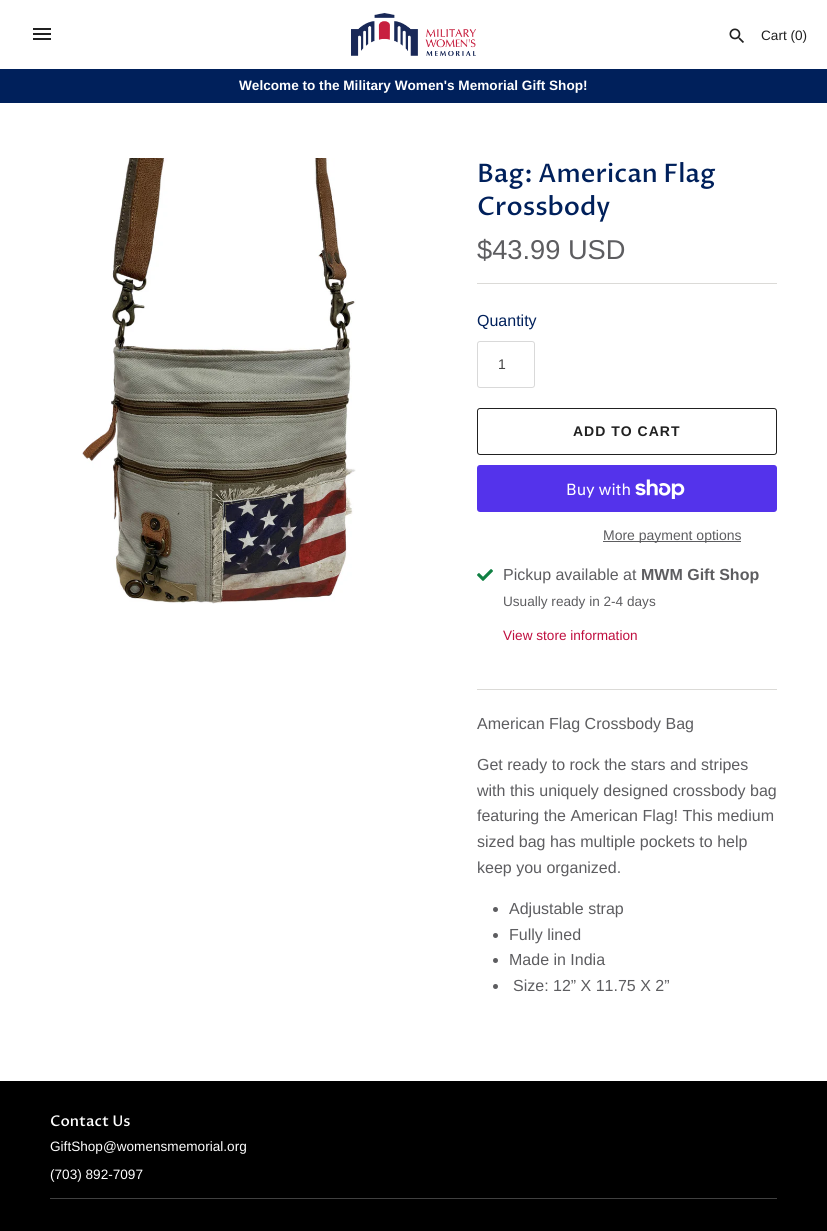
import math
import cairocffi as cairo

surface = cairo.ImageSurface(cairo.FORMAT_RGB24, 827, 1231)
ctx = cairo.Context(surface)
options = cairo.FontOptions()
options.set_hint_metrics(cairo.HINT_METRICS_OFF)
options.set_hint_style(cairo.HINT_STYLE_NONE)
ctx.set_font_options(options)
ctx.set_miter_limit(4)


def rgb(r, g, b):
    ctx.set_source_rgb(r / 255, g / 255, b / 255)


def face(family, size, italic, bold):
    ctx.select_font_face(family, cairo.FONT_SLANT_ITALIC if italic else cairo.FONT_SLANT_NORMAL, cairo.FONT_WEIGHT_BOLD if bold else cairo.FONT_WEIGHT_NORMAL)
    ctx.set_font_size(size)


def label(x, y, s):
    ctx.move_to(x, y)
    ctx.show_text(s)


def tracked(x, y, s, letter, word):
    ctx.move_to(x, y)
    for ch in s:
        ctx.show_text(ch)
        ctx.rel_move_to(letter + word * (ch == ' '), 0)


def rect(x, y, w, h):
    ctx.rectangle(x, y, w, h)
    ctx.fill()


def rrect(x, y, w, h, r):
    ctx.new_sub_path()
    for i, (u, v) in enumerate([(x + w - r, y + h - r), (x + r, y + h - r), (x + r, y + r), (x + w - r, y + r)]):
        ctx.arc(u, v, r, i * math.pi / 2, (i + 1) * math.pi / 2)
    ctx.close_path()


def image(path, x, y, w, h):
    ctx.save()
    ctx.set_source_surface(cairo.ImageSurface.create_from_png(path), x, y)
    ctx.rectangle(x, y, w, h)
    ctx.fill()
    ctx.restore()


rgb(255, 255, 255)
ctx.paint()
image('image0.png', 33, 28, 18, 12)
image('image1.png', 351, 13, 125, 43)
image('image2.png', 729, 28, 15, 15)
face('Liberation Sans', 13.6, 0, 0)
rgb(33, 33, 33)
label(761, 40, 'Cart (0)')
rgb(0, 32, 91)
rect(0, 69, 827, 34)
face('Liberation Sans', 13.6, 0, 1)
rgb(255, 255, 255)
label(239, 90, 'Welcome to the Military Women\'s Memorial Gift Shop!')
image('image3.png', 82, 158, 274, 446)
face('Proza Libre Medium', 25.5, 0, 0)
rgb(0, 32, 91)
label(477, 182, 'Bag: American Flag')
label(477, 215, 'Crossbody')
face('Liberation Sans', 27.25, 0, 0)
rgb(93, 93, 96)
label(477, 259, '$43.99 USD')
rgb(219, 218, 215)
rect(477, 283, 300, 1)
face('Liberation Sans', 16, 0, 0)
rgb(0, 32, 91)
label(477, 326, 'Quantity')
rrect(477.5, 341.5, 57, 46, 2.5)
rgb(217, 217, 217)
ctx.set_line_width(1)
ctx.stroke()
face('Liberation Sans', 14, 0, 0)
rgb(68, 68, 68)
label(498, 369, '1')
rrect(477.5, 408.5, 299, 46, 2.5)
rgb(33, 33, 33)
ctx.stroke()
face('Liberation Sans', 14, 0, 1)
tracked(573, 436, 'ADD TO CART', 1, 0)
rgb(84, 51, 235)
rrect(477, 465, 300, 47, 3)
ctx.fill()
face('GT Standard', 16, 0, 0)
rgb(255, 255, 255)
label(566, 495, 'Buy with')
image('image4.png', 635, 479, 50, 20)
rgb(93, 93, 96)
rect(603, 541, 138, 1)
face('Liberation Sans', 14, 0, 0)
label(603, 540, 'More payment options')
image('image5.png', 477, 569, 16, 12)
face('Liberation Sans', 16, 0, 0)
label(503, 580, 'Pickup available at')
face('Liberation Sans', 16, 0, 1)
label(641, 580, 'MWM Gift Shop')
face('Liberation Sans', 13.6, 0, 0)
label(503, 606, 'Usually ready in 2-4 days')
rgb(191, 13, 62)
label(503, 640, 'View store information')
rgb(219, 218, 215)
rect(477, 689, 300, 1)
face('Liberation Sans', 16, 0, 0)
rgb(93, 93, 96)
label(477, 729, 'American Flag Crossbody Bag')
label(477, 770, 'Get ready to rock the stars and stripes')
label(477, 796, 'with this uniquely designed crossbody bag')
label(477, 821, 'featuring the American Flag! This medium')
label(477, 847, 'sized bag has multiple pockets to help')
label(477, 873, 'keep you organized.')
ctx.new_path()
ctx.arc(495.5, 909.5, 2.5, 0, 2 * math.pi)
ctx.fill()
label(509, 914, 'Adjustable strap')
ctx.new_path()
ctx.arc(495.5, 935.5, 2.5, 0, 2 * math.pi)
ctx.fill()
label(509, 940, 'Fully lined')
ctx.new_path()
ctx.arc(495.5, 960.5, 2.5, 0, 2 * math.pi)
ctx.fill()
label(509, 965, 'Made in India')
ctx.new_path()
ctx.arc(495.5, 986.5, 2.5, 0, 2 * math.pi)
ctx.fill()
label(513, 991, 'Size: 12” X 11.75 X 2”')
rgb(0, 0, 0)
rect(0, 1081, 827, 150)
rgb(64, 64, 64)
rect(50, 1198, 727, 1)
face('Proza Libre Medium', 14.75, 0, 0)
rgb(255, 255, 255)
label(50, 1126, 'Contact Us')
face('Liberation Sans', 13.6, 0, 0)
label(50, 1151, 'GiftShop@womensmemorial.org')
label(50, 1179, '(703) 892-7097')
surface.write_to_png('render.png')
